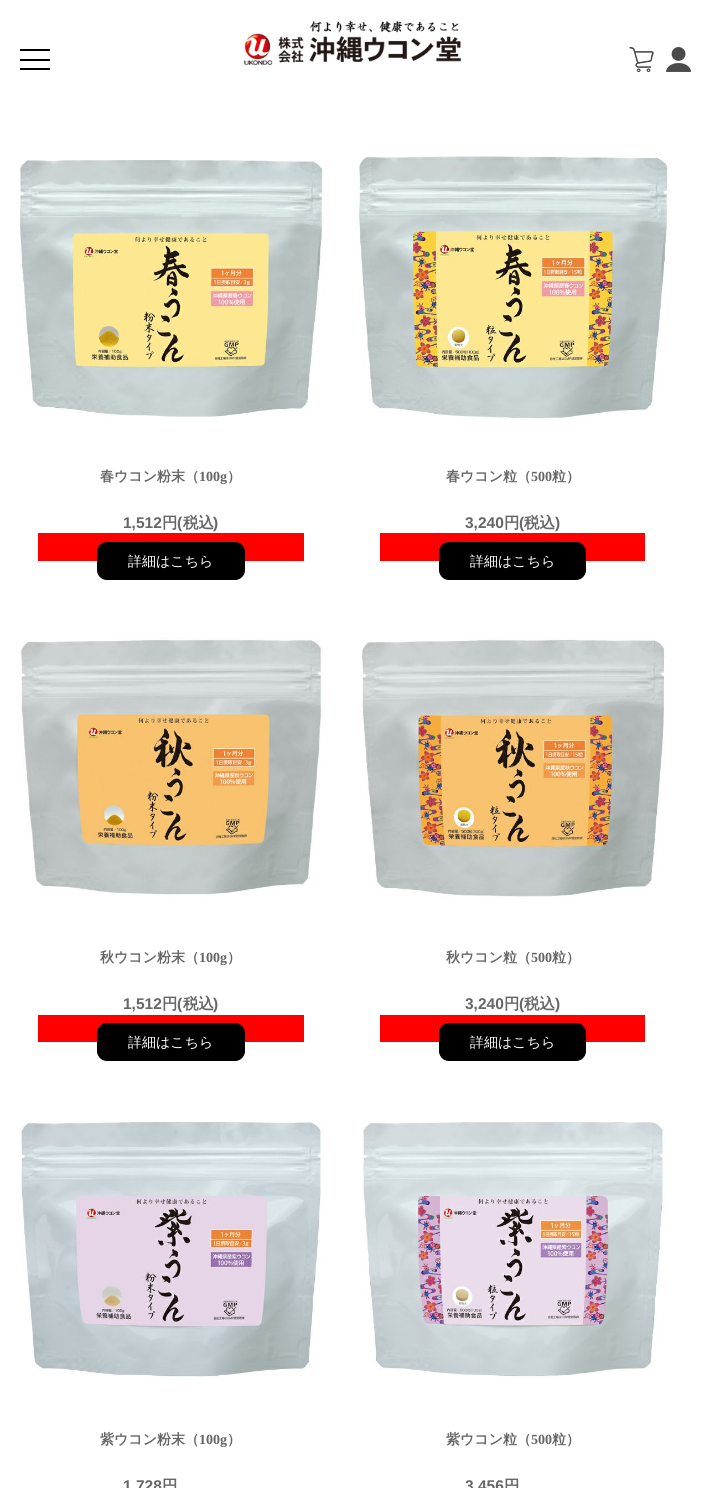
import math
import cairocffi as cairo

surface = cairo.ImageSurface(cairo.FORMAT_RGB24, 706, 1488)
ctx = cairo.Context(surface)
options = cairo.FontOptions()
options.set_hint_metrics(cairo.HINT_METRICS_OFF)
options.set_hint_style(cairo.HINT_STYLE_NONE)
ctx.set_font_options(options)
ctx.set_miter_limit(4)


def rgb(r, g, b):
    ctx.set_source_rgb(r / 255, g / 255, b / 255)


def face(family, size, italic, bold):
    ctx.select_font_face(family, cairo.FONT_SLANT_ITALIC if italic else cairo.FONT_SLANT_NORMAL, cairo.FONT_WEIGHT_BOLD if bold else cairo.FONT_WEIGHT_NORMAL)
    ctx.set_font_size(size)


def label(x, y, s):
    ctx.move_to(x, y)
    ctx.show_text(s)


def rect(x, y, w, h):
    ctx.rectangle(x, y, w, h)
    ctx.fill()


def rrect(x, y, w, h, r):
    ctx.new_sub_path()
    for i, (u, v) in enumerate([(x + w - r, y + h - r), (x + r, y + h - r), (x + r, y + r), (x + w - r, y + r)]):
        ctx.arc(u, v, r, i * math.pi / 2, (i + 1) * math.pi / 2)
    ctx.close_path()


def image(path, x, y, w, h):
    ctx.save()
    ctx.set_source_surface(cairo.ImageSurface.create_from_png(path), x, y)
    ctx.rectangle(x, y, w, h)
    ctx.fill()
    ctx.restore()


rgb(255, 255, 255)
ctx.paint()
rgb(0, 0, 0)
rect(20, 49, 30, 2)
rect(20, 59, 30, 2)
rect(20, 68, 30, 2)
image('image0.png', 244, 20, 217, 45)
image('image1.png', 629, 47, 25, 25)
image('image2.png', 666, 47, 25, 25)
image('image3.png', 18, 160, 306, 257)
face('WenQuanYi Zen Hei', 14, 0, 1)
rgb(102, 102, 102)
label(100, 481, '春ウコン粉末（')
face('Liberation Serif', 14, 0, 1)
label(199, 481, '100g')
face('WenQuanYi Zen Hei', 14, 0, 1)
label(227, 481, '）')
face('Liberation Sans', 15.5, 0, 1)
label(123, 528, '1,512')
face('WenQuanYi Zen Hei', 15.5, 0, 1)
label(162, 528, '円')
face('Liberation Sans', 15.5, 0, 1)
label(177, 528, '(')
face('WenQuanYi Zen Hei', 15.5, 0, 1)
label(183, 528, '税込')
face('Liberation Sans', 15.5, 0, 1)
label(213, 528, ')')
rgb(255, 0, 0)
rect(38, 533, 266, 28)
rgb(0, 0, 0)
rrect(97.5, 542.5, 147, 37, 9.5)
ctx.fill_preserve()
ctx.set_line_width(1)
ctx.stroke()
face('WenQuanYi Zen Hei Medium', 14, 0, 0)
rgb(255, 255, 255)
label(128, 566, '詳細はこちら')
image('image4.png', 356, 156, 314, 264)
face('WenQuanYi Zen Hei', 14, 0, 1)
rgb(102, 102, 102)
label(446, 481, '春ウコン粒（')
face('Liberation Serif', 14, 0, 1)
label(531, 481, '500')
face('WenQuanYi Zen Hei', 14, 0, 1)
label(552, 481, '粒）')
face('Liberation Sans', 15.5, 0, 1)
label(465, 528, '3,240')
face('WenQuanYi Zen Hei', 15.5, 0, 1)
label(504, 528, '円')
face('Liberation Sans', 15.5, 0, 1)
label(519, 528, '(')
face('WenQuanYi Zen Hei', 15.5, 0, 1)
label(524, 528, '税込')
face('Liberation Sans', 15.5, 0, 1)
label(555, 528, ')')
rgb(255, 0, 0)
rect(380, 533, 265, 28)
rgb(0, 0, 0)
rrect(439.5, 542.5, 146, 37, 9.5)
ctx.fill_preserve()
ctx.stroke()
face('WenQuanYi Zen Hei Medium', 14, 0, 0)
rgb(255, 255, 255)
label(470, 566, '詳細はこちら')
image('image5.png', 20, 637, 303, 260)
face('WenQuanYi Zen Hei', 14, 0, 1)
rgb(102, 102, 102)
label(100, 962, '秋ウコン粉末（')
face('Liberation Serif', 14, 0, 1)
label(199, 962, '100g')
face('WenQuanYi Zen Hei', 14, 0, 1)
label(227, 962, '）')
face('Liberation Sans', 15.5, 0, 1)
label(123, 1009, '1,512')
face('WenQuanYi Zen Hei', 15.5, 0, 1)
label(162, 1009, '円')
face('Liberation Sans', 15.5, 0, 1)
label(177, 1009, '(')
face('WenQuanYi Zen Hei', 15.5, 0, 1)
label(183, 1009, '税込')
face('Liberation Sans', 15.5, 0, 1)
label(213, 1009, ')')
rgb(255, 0, 0)
rect(38, 1015, 266, 27)
rgb(0, 0, 0)
rrect(97.5, 1023.5, 147, 37, 9.5)
ctx.fill_preserve()
ctx.stroke()
face('WenQuanYi Zen Hei Medium', 14, 0, 0)
rgb(255, 255, 255)
label(128, 1047, '詳細はこちら')
image('image6.png', 360, 637, 306, 260)
face('WenQuanYi Zen Hei', 14, 0, 1)
rgb(102, 102, 102)
label(446, 962, '秋ウコン粒（')
face('Liberation Serif', 14, 0, 1)
label(531, 962, '500')
face('WenQuanYi Zen Hei', 14, 0, 1)
label(552, 962, '粒）')
face('Liberation Sans', 15.5, 0, 1)
label(465, 1009, '3,240')
face('WenQuanYi Zen Hei', 15.5, 0, 1)
label(504, 1009, '円')
face('Liberation Sans', 15.5, 0, 1)
label(519, 1009, '(')
face('WenQuanYi Zen Hei', 15.5, 0, 1)
label(524, 1009, '税込')
face('Liberation Sans', 15.5, 0, 1)
label(555, 1009, ')')
rgb(255, 0, 0)
rect(380, 1015, 265, 27)
rgb(0, 0, 0)
rrect(439.5, 1023.5, 146, 37, 9.5)
ctx.fill_preserve()
ctx.stroke()
face('WenQuanYi Zen Hei Medium', 14, 0, 0)
rgb(255, 255, 255)
label(470, 1047, '詳細はこちら')
image('image7.png', 19, 1121, 305, 259)
face('WenQuanYi Zen Hei', 14, 0, 1)
rgb(102, 102, 102)
label(100, 1444, '紫ウコン粉末（')
face('Liberation Serif', 14, 0, 1)
label(199, 1444, '100g')
face('WenQuanYi Zen Hei', 14, 0, 1)
label(227, 1444, '）')
face('Liberation Sans', 15.5, 0, 1)
label(123, 1491, '1,728')
face('WenQuanYi Zen Hei', 15.5, 0, 1)
label(162, 1491, '円')
image('image8.png', 360, 1122, 306, 256)
face('WenQuanYi Zen Hei', 14, 0, 1)
label(446, 1444, '紫ウコン粒（')
face('Liberation Serif', 14, 0, 1)
label(531, 1444, '500')
face('WenQuanYi Zen Hei', 14, 0, 1)
label(552, 1444, '粒）')
face('Liberation Sans', 15.5, 0, 1)
label(465, 1491, '3,456')
face('WenQuanYi Zen Hei', 15.5, 0, 1)
label(504, 1491, '円')
surface.write_to_png('render.png')
